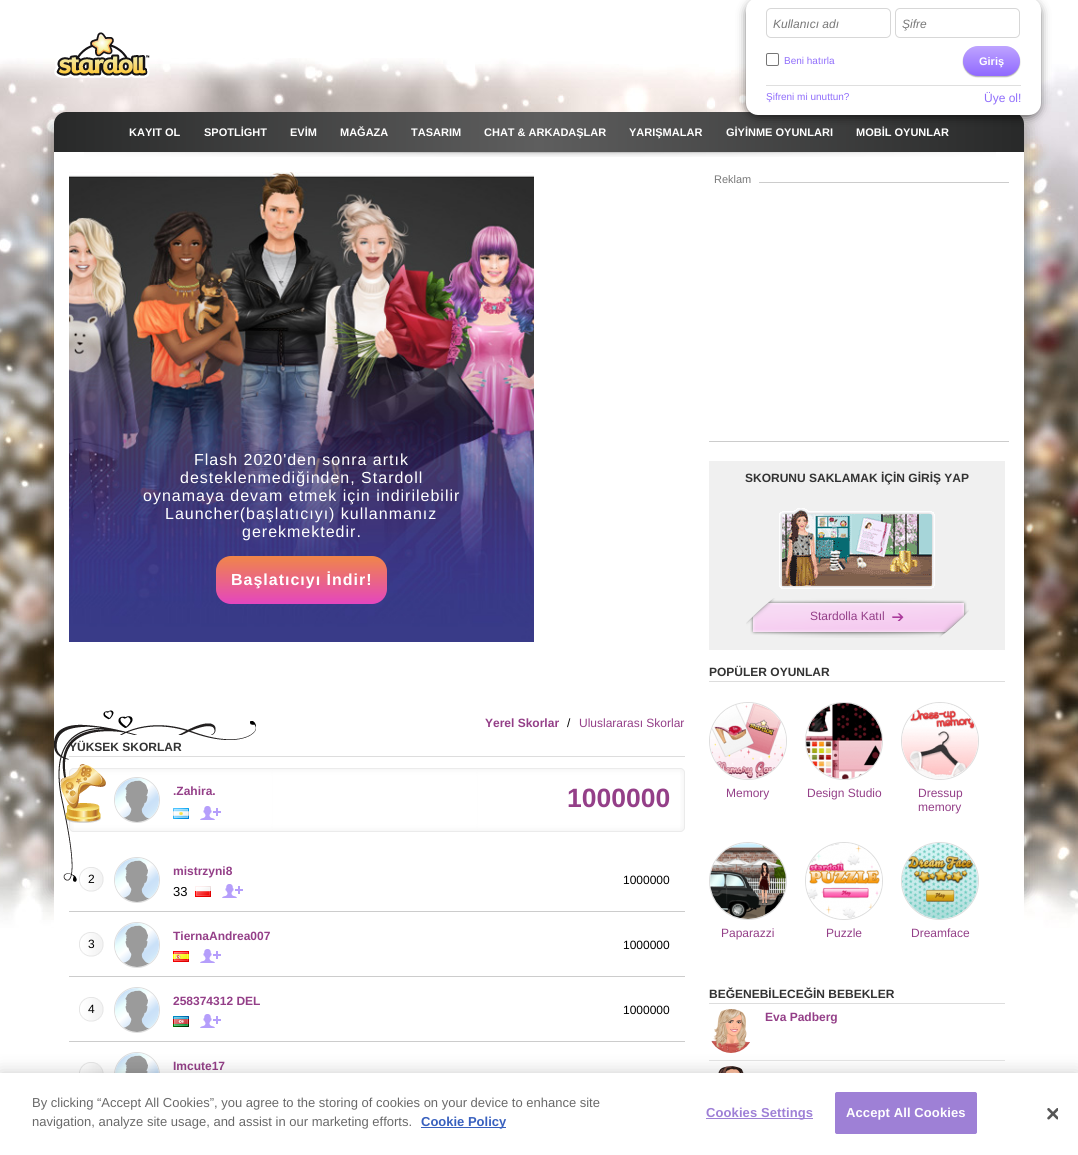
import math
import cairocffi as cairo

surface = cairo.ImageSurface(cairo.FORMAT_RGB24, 1078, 1155)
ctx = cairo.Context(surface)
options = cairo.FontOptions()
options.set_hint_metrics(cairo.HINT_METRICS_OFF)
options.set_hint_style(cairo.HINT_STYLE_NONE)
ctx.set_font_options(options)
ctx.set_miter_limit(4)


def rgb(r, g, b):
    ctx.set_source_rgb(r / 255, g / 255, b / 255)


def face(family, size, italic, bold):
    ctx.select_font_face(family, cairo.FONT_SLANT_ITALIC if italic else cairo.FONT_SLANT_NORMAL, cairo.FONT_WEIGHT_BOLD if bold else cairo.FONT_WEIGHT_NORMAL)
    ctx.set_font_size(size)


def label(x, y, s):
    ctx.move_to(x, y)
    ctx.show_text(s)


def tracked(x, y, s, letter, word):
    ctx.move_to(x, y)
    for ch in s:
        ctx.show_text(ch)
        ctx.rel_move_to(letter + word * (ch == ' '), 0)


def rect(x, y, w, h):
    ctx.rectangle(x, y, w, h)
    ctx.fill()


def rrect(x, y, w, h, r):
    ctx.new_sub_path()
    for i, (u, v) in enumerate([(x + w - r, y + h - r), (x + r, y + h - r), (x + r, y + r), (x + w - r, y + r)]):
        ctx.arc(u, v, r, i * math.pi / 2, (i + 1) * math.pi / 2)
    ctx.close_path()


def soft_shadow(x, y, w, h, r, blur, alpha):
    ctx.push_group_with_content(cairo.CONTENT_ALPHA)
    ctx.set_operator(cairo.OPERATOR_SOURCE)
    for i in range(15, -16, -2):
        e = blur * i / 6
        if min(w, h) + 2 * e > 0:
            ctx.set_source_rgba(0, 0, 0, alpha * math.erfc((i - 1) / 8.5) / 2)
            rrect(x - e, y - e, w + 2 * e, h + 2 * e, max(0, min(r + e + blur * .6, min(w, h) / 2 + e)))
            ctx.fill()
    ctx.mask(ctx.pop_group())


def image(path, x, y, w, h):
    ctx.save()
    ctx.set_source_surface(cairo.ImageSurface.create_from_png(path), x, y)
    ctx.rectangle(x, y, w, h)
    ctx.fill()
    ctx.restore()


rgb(255, 255, 255)
ctx.paint()
image('image0.png', 0, 58, 1078, 870)
image('image1.png', 54, 32, 96, 46)
rgb(0, 0, 0)
soft_shadow(52, 127, 20, 764, 0, 8, 0.3)
soft_shadow(1006, 127, 20, 764, 0, 8, 0.3)
gradient = cairo.LinearGradient(54, 132, 1024, 132)
gradient.add_color_stop_rgba(0, 0.157, 0.161, 0.161, 1)
gradient.add_color_stop_rgba(0.5, 0.369, 0.369, 0.369, 1)
gradient.add_color_stop_rgba(1, 0.157, 0.161, 0.161, 1)
ctx.set_source(gradient)
ctx.new_path()
ctx.move_to(66, 112)
ctx.line_to(1012, 112)
ctx.curve_to(1018.5, 112, 1024, 117.5, 1024, 124)
ctx.line_to(1024, 152)
ctx.line_to(54, 152)
ctx.line_to(54, 124)
ctx.curve_to(54, 117.5, 59.5, 112, 66, 112)
ctx.close_path()
ctx.fill()
rgb(0, 0, 0)
soft_shadow(750, 5, 287, 109, 8, 6, 1)
rgb(255, 255, 255)
rrect(746, -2, 295, 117, 12)
ctx.fill()
rrect(766.5, 8.5, 124, 29, 4.5)
rgb(215, 215, 215)
ctx.set_line_width(1)
ctx.stroke()
face('Liberation Sans', 12, 1, 0)
rgb(120, 120, 120)
label(773, 28, 'Kullanıcı adı')
rrect(895.5, 8.5, 124, 29, 4.5)
rgb(215, 215, 215)
ctx.stroke()
rgb(120, 120, 120)
label(902, 28, 'Şifre')
rrect(766.5, 53.5, 12, 12, 1.5)
rgb(118, 118, 118)
ctx.stroke()
face('Liberation Sans', 10, 0, 0)
rgb(144, 110, 251)
label(784, 64, 'Beni hatırla')
rgb(0, 0, 0)
soft_shadow(963, 47, 57, 30, 15, 0.5, 0.3)
gradient = cairo.LinearGradient(992, 46, 992, 76)
gradient.add_color_stop_rgba(0, 0.745, 0.643, 1, 1)
gradient.add_color_stop_rgba(1, 0.565, 0.412, 1, 1)
ctx.set_source(gradient)
rrect(963, 46, 57, 30, 15)
ctx.fill()
face('Liberation Sans', 11, 0, 1)
rgb(255, 255, 255)
label(979, 65, 'Giriş')
rgb(223, 223, 223)
rect(766, 85, 255, 1)
face('Liberation Sans', 10, 0, 0)
rgb(144, 110, 251)
label(766, 100, 'Şifreni mi unuttun?')
face('Liberation Sans', 12, 0, 0)
label(984, 102, 'Üye ol!')
face('Liberation Sans', 11, 0, 1)
rgb(255, 255, 255)
label(129, 136, 'KAYIT OL')
label(204, 136, 'SPOTLİGHT')
label(290, 136, 'EVİM')
label(340, 136, 'MAĞAZA')
label(411, 136, 'TASARIM')
label(484, 136, 'CHAT & ARKADAŞLAR')
label(629, 136, 'YARIŞMALAR')
label(726, 136, 'GİYİNME OYUNLARI')
label(856, 136, 'MOBİL OYUNLAR')
rect(54, 152, 970, 776)
image('image2.png', 84, 152, 912, 5)
image('image3.png', 69, 172, 465, 470)
face('Liberation Sans', 16, 0, 0)
tracked(194, 465, 'Flash 2020\'den sonra artık', 1, 0)
tracked(180, 483, 'desteklenmediğinden, Stardoll', 1, 0)
tracked(143, 501, 'oynamaya devam etmek için indirilebilir', 1, 0)
tracked(165, 519, 'Launcher(başlatıcıyı) kullanmanız', 1, 0)
tracked(242, 537, 'gerekmektedir.', 1, 0)
gradient = cairo.LinearGradient(302, 556, 302, 604)
gradient.add_color_stop_rgba(0, 0.941, 0.525, 0.282, 1)
gradient.add_color_stop_rgba(1, 0.894, 0.275, 0.749, 1)
ctx.set_source(gradient)
rrect(216, 556, 171, 48, 15)
ctx.fill()
face('Liberation Sans', 16, 0, 1)
rgb(255, 255, 255)
tracked(231, 585, 'Başlatıcıyı İndir!', 1, 0)
face('Liberation Sans', 12, 0, 1)
rgb(148, 63, 136)
label(485, 727, 'Yerel Skorlar')
face('Liberation Sans', 12, 0, 0)
rgb(0, 0, 0)
label(567, 727, '/')
rgb(148, 63, 136)
label(579, 727, 'Uluslararası Skorlar')
rgb(221, 221, 221)
rect(69, 756, 616, 1)
face('Liberation Sans', 12, 0, 1)
rgb(51, 51, 51)
label(69, 751, 'YÜKSEK SKORLAR')
image('image4.png', 54, 710, 202, 172)
image('image5.png', 74, 768, 606, 64)
image('image7.png', 69, 768, 5, 64)
image('image6.png', 60, 764, 46, 59)
ctx.arc(137, 800, 22.5, 0, 2 * math.pi)
rgb(221, 221, 221)
ctx.stroke()
image('image8.png', 115, 778, 44, 44)
rgb(148, 63, 136)
label(173, 795, '.Zahira.')
face('Liberation Sans', 26.5, 0, 1)
label(567, 807, '1000000')
image('image9.png', 680, 768, 5, 64)
image('image10.png', 173, 808, 16, 11)
image('image11.png', 200, 806, 21, 14)
rgb(204, 204, 204)
rect(69, 911, 616, 1)
image('image12.png', 79, 867, 25, 25)
face('Liberation Sans', 12, 0, 0)
rgb(0, 0, 0)
label(88, 883, '2')
ctx.new_path()
ctx.arc(137, 880, 22.5, 0, 2 * math.pi)
rgb(221, 221, 221)
ctx.stroke()
image('image8.png', 115, 858, 44, 44)
face('Liberation Sans', 12, 0, 1)
rgb(148, 63, 136)
label(173, 875, 'mistrzyni8')
face('Liberation Sans', 12, 0, 0)
rgb(0, 0, 0)
label(623, 884, '1000000')
face('Liberation Sans', 13, 0, 0)
label(173, 896, '33')
image('image13.png', 195, 886, 16, 11)
image('image11.png', 222, 884, 21, 14)
rgb(204, 204, 204)
rect(69, 976, 616, 1)
ctx.arc(137, 945, 22.5, 0, 2 * math.pi)
rgb(221, 221, 221)
ctx.stroke()
image('image8.png', 115, 923, 44, 44)
face('Liberation Sans', 12, 0, 1)
rgb(148, 63, 136)
label(173, 940, 'TiernaAndrea007')
image('image12.png', 79, 932, 25, 25)
face('Liberation Sans', 12, 0, 0)
rgb(0, 0, 0)
label(88, 948, '3')
label(623, 949, '1000000')
image('image14.png', 173, 951, 16, 11)
image('image11.png', 200, 949, 21, 14)
rgb(204, 204, 204)
rect(69, 1041, 616, 1)
ctx.arc(137, 1010, 22.5, 0, 2 * math.pi)
rgb(221, 221, 221)
ctx.stroke()
image('image15.png', 115, 988, 44, 44)
face('Liberation Sans', 12, 0, 1)
rgb(148, 63, 136)
label(173, 1005, '258374312 DEL')
image('image12.png', 79, 997, 25, 25)
face('Liberation Sans', 12, 0, 0)
rgb(0, 0, 0)
label(88, 1013, '4')
label(623, 1014, '1000000')
image('image16.png', 173, 1016, 16, 11)
image('image11.png', 200, 1014, 21, 14)
image('image17.png', 79, 1062, 25, 11)
ctx.arc(137, 1075, 22.5, 0, 2 * math.pi)
rgb(221, 221, 221)
ctx.stroke()
image('image18.png', 115, 1053, 44, 20)
face('Liberation Sans', 12, 0, 1)
rgb(148, 63, 136)
label(173, 1070, 'Imcute17')
face('Liberation Sans', 11, 0, 0)
rgb(120, 120, 120)
label(714, 183, 'Reklam')
rgb(204, 204, 204)
rect(759, 182, 250, 1)
rect(709, 441, 300, 1)
rgb(240, 240, 240)
rect(709, 461, 296, 189)
face('Liberation Sans', 12, 0, 1)
rgb(51, 51, 51)
label(745, 482, 'SKORUNU SAKLAMAK İÇİN GİRİŞ YAP')
image('image19.png', 779, 508, 156, 81)
image('image20.png', 746, 598, 223, 40)
image('image21.png', 892, 613, 12, 8)
face('Liberation Sans', 12, 0, 0)
rgb(148, 63, 136)
label(810, 620, 'Stardolla Katıl')
rgb(221, 221, 221)
rect(709, 681, 296, 1)
face('Liberation Sans', 12, 0, 1)
rgb(51, 51, 51)
label(709, 676, 'POPÜLER OYUNLAR')
ctx.new_path()
ctx.arc(748, 741, 38.5, 0, 2 * math.pi)
rgb(221, 221, 221)
ctx.stroke()
image('image22.png', 710, 703, 76, 76)
face('Liberation Sans', 12, 0, 0)
rgb(148, 63, 136)
label(726, 797, 'Memory')
ctx.new_path()
ctx.arc(844, 741, 38.5, 0, 2 * math.pi)
rgb(221, 221, 221)
ctx.stroke()
image('image23.png', 806, 703, 76, 76)
rgb(148, 63, 136)
label(807, 797, 'Design Studio')
ctx.new_path()
ctx.arc(940, 741, 38.5, 0, 2 * math.pi)
rgb(221, 221, 221)
ctx.stroke()
image('image24.png', 902, 703, 76, 76)
rgb(148, 63, 136)
label(918, 797, 'Dressup')
label(918, 811, 'memory')
ctx.new_path()
ctx.arc(748, 881, 38.5, 0, 2 * math.pi)
rgb(221, 221, 221)
ctx.stroke()
image('image25.png', 710, 843, 76, 76)
rgb(148, 63, 136)
label(721, 937, 'Paparazzi')
ctx.new_path()
ctx.arc(844, 881, 38.5, 0, 2 * math.pi)
rgb(221, 221, 221)
ctx.stroke()
image('image26.png', 806, 843, 76, 76)
rgb(148, 63, 136)
label(826, 937, 'Puzzle')
ctx.new_path()
ctx.arc(940, 881, 38.5, 0, 2 * math.pi)
rgb(221, 221, 221)
ctx.stroke()
image('image27.png', 902, 843, 76, 76)
rgb(148, 63, 136)
label(911, 937, 'Dreamface')
rgb(221, 221, 221)
rect(709, 1003, 296, 1)
face('Liberation Sans', 12, 0, 1)
rgb(51, 51, 51)
label(709, 998, 'BEĞENEBİLECEĞİN BEBEKLER')
rgb(229, 229, 229)
rect(709, 1060, 296, 1)
image('image28.png', 711, 1009, 39, 44)
rgb(148, 63, 136)
label(765, 1021, 'Eva Padberg')
image('image29.png', 718, 1066, 26, 7)
rgb(0, 0, 0)
soft_shadow(0, 1073, 1078, 82, 0, 9, 0.2)
rgb(255, 255, 255)
rect(0, 1073, 1078, 82)
face('Liberation Sans', 13, 0, 0)
rgb(105, 105, 105)
label(32, 1107, 'By clicking “Accept All Cookies”, you agree to the storing of cookies on your device to enhance site')
label(32, 1126, 'navigation, analyze site usage, and assist in our marketing efforts.')
rgb(56, 96, 190)
rect(421, 1127, 85, 1)
face('Liberation Sans', 13, 0, 1)
label(421, 1126, 'Cookie Policy')
rgb(158, 128, 214)
rect(706, 1118, 107, 1)
tracked(706, 1117, 'Cookies Settings', 0.1, 0)
rrect(835.5, 1092.5, 141, 41, 1.5)
ctx.fill_preserve()
ctx.stroke()
rgb(255, 255, 255)
tracked(846, 1117, 'Accept All Cookies', 0.1, 0)
image('image30.png', 1047, 1108, 11, 12)
surface.write_to_png('render.png')
